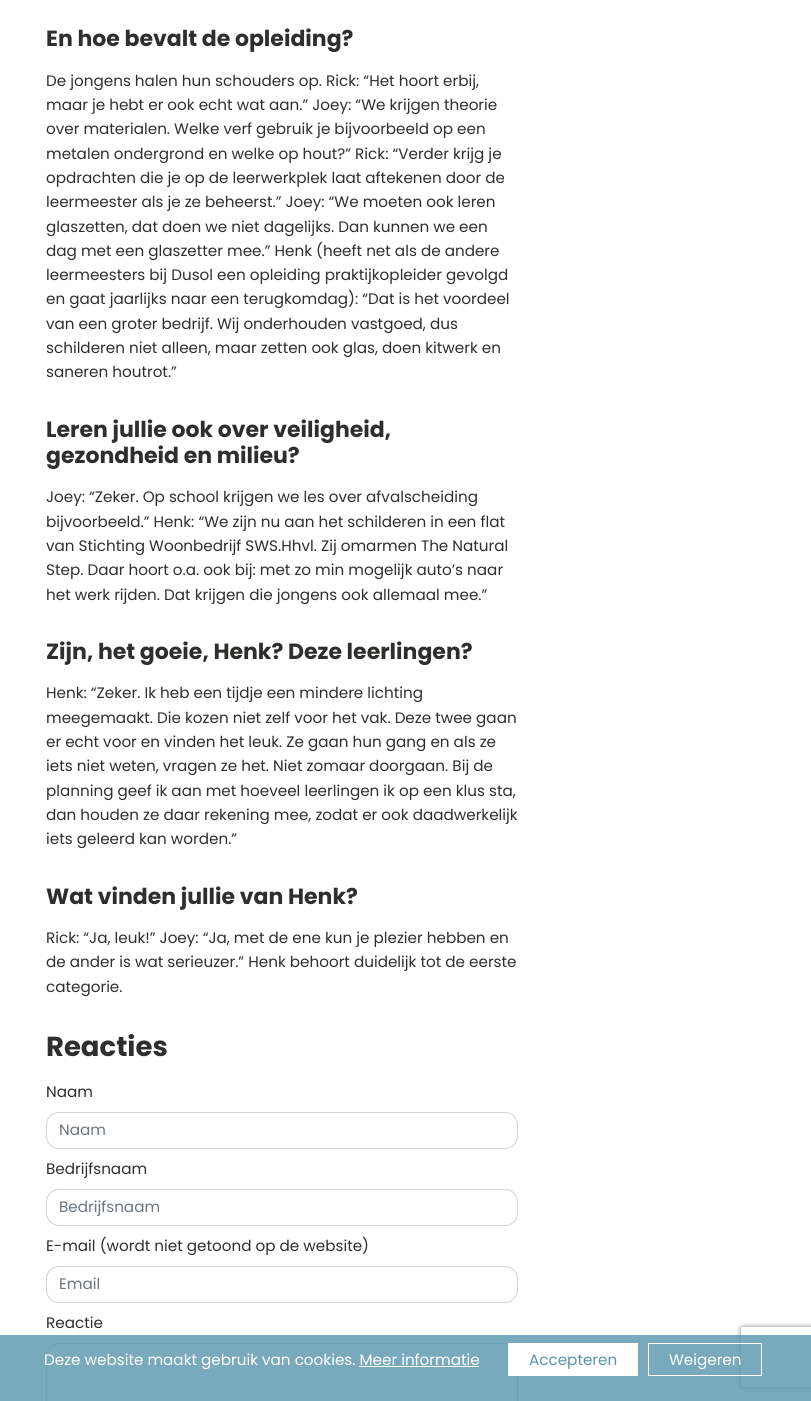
import math
import cairocffi as cairo

surface = cairo.ImageSurface(cairo.FORMAT_RGB24, 811, 1401)
ctx = cairo.Context(surface)
options = cairo.FontOptions()
options.set_hint_metrics(cairo.HINT_METRICS_OFF)
options.set_hint_style(cairo.HINT_STYLE_NONE)
ctx.set_font_options(options)
ctx.set_miter_limit(4)


def rgb(r, g, b):
    ctx.set_source_rgb(r / 255, g / 255, b / 255)


def face(family, size, italic, bold):
    ctx.select_font_face(family, cairo.FONT_SLANT_ITALIC if italic else cairo.FONT_SLANT_NORMAL, cairo.FONT_WEIGHT_BOLD if bold else cairo.FONT_WEIGHT_NORMAL)
    ctx.set_font_size(size)


def label(x, y, s):
    ctx.move_to(x, y)
    ctx.show_text(s)


def rect(x, y, w, h):
    ctx.rectangle(x, y, w, h)
    ctx.fill()


def rrect(x, y, w, h, r):
    ctx.new_sub_path()
    for i, (u, v) in enumerate([(x + w - r, y + h - r), (x + r, y + h - r), (x + r, y + r), (x + w - r, y + r)]):
        ctx.arc(u, v, r, i * math.pi / 2, (i + 1) * math.pi / 2)
    ctx.close_path()


def soft_shadow(x, y, w, h, r, blur, alpha):
    ctx.push_group_with_content(cairo.CONTENT_ALPHA)
    ctx.set_operator(cairo.OPERATOR_SOURCE)
    for i in range(15, -16, -2):
        e = blur * i / 6
        if min(w, h) + 2 * e > 0:
            ctx.set_source_rgba(0, 0, 0, alpha * math.erfc((i - 1) / 8.5) / 2)
            rrect(x - e, y - e, w + 2 * e, h + 2 * e, max(0, min(r + e + blur * .6, min(w, h) / 2 + e)))
            ctx.fill()
    ctx.mask(ctx.pop_group())


rgb(255, 255, 255)
ctx.paint()
face('Poppins', 22, 0, 1)
rgb(46, 46, 44)
label(46, 46, 'En hoe bevalt de opleiding?')
face('Poppins', 15.2, 0, 0)
label(46, 86, 'De jongens halen hun schouders op. Rick: “Het hoort erbij,')
label(46, 110, 'maar je hebt er ook echt wat aan.” Joey: “We krijgen theorie')
label(46, 134, 'over materialen. Welke verf gebruik je bijvoorbeeld op een')
label(46, 159, 'metalen ondergrond en welke op hout?” Rick: “Verder krijg je')
label(46, 183, 'opdrachten die je op de leerwerkplek laat aftekenen door de')
label(46, 207, 'leermeester als je ze beheerst.” Joey: “We moeten ook leren')
label(46, 232, 'glaszetten, dat doen we niet dagelijks. Dan kunnen we een')
label(46, 256, 'dag met een glaszetter mee.” Henk (heeft net als de andere')
label(46, 280, 'leermeesters bij Dusol een opleiding praktijkopleider gevolgd')
label(46, 304, 'en gaat jaarlijks naar een terugkomdag): “Dat is het voordeel')
label(46, 329, 'van een groter bedrijf. Wij onderhouden vastgoed, dus')
label(46, 353, 'schilderen niet alleen, maar zetten ook glas, doen kitwerk en')
label(46, 377, 'saneren houtrot.”')
face('Poppins', 22, 0, 1)
label(46, 437, 'Leren jullie ook over veiligheid,')
label(46, 463, 'gezondheid en milieu?')
face('Poppins', 15.2, 0, 0)
label(46, 502, 'Joey: “Zeker. Op school krijgen we les over afvalscheiding')
label(46, 527, 'bijvoorbeeld.” Henk: “We zijn nu aan het schilderen in een flat')
label(46, 551, 'van Stichting Woonbedrijf SWS.Hhvl. Zij omarmen The Natural')
label(46, 575, 'Step. Daar hoort o.a. ook bij: met zo min mogelijk auto’s naar')
label(46, 600, 'het werk rijden. Dat krijgen die jongens ook allemaal mee.”')
face('Poppins', 22, 0, 1)
label(46, 659, 'Zijn, het goeie, Henk? Deze leerlingen?')
face('Poppins', 15.2, 0, 0)
label(46, 698, 'Henk: “Zeker. Ik heb een tijdje een mindere lichting')
label(46, 723, 'meegemaakt. Die kozen niet zelf voor het vak. Deze twee gaan')
label(46, 747, 'er echt voor en vinden het leuk. Ze gaan hun gang en als ze')
label(46, 771, 'iets niet weten, vragen ze het. Niet zomaar doorgaan. Bij de')
label(46, 796, 'planning geef ik aan met hoeveel leerlingen ik op een klus sta,')
label(46, 820, 'dan houden ze daar rekening mee, zodat er ook daadwerkelijk')
label(46, 844, 'iets geleerd kan worden.”')
face('Poppins', 22, 0, 1)
label(46, 904, 'Wat vinden jullie van Henk?')
face('Poppins', 15.2, 0, 0)
label(46, 943, 'Rick: “Ja, leuk!” Joey: “Ja, met de ene kun je plezier hebben en')
label(46, 967, 'de ander is wat serieuzer.” Henk behoort duidelijk tot de eerste')
label(46, 992, 'categorie.')
face('Poppins', 27.5, 0, 1)
label(46, 1056, 'Reacties')
face('Poppins', 15.2, 0, 0)
label(46, 1097, 'Naam')
rrect(46.5, 1112.5, 471, 36, 12.5)
rgb(206, 212, 218)
ctx.set_line_width(1)
ctx.stroke()
rgb(108, 117, 125)
label(59, 1135, 'Naam')
rgb(46, 46, 44)
label(46, 1174, 'Bedrijfsnaam')
rrect(46.5, 1189.5, 471, 36, 12.5)
rgb(206, 212, 218)
ctx.stroke()
rgb(108, 117, 125)
label(59, 1212, 'Bedrijfsnaam')
rgb(46, 46, 44)
label(46, 1251, 'E-mail (wordt niet getoond op de website)')
rrect(46.5, 1266.5, 471, 36, 12.5)
rgb(206, 212, 218)
ctx.stroke()
rgb(108, 117, 125)
label(59, 1289, 'Email')
rgb(46, 46, 44)
label(46, 1328, 'Reactie')
rrect(46.5, 1343.5, 471, 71, 12.5)
rgb(206, 212, 218)
ctx.stroke()
ctx.save()
ctx.set_fill_rule(cairo.FILL_RULE_EVEN_ODD)
ctx.new_path()
ctx.move_to(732, 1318)
ctx.line_to(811, 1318)
ctx.line_to(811, 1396)
ctx.line_to(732, 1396)
ctx.close_path()
ctx.move_to(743, 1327)
ctx.line_to(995, 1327)
ctx.curve_to(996, 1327, 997, 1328, 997, 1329)
ctx.line_to(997, 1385)
ctx.curve_to(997, 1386, 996, 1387, 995, 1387)
ctx.line_to(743, 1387)
ctx.curve_to(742, 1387, 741, 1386, 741, 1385)
ctx.line_to(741, 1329)
ctx.curve_to(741, 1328, 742, 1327, 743, 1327)
ctx.close_path()
ctx.clip()
rgb(128, 128, 128)
soft_shadow(741, 1327, 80, 60, 2, 2.5, 1)
ctx.restore()
ctx.set_source_rgba(0.345, 0.58, 0.675, 0.8)
rect(0, 1335, 811, 66)
rgb(255, 255, 255)
label(44, 1365, 'Deze website maakt gebruik van cookies. Meer informatie')
rect(359, 1366, 120, 1)
rect(508, 1343, 130, 33)
rgb(88, 148, 172)
label(529, 1365, 'Accepteren')
ctx.rectangle(648.5, 1343.5, 113, 32)
rgb(255, 255, 255)
ctx.stroke()
label(669, 1365, 'Weigeren')
surface.write_to_png('render.png')
